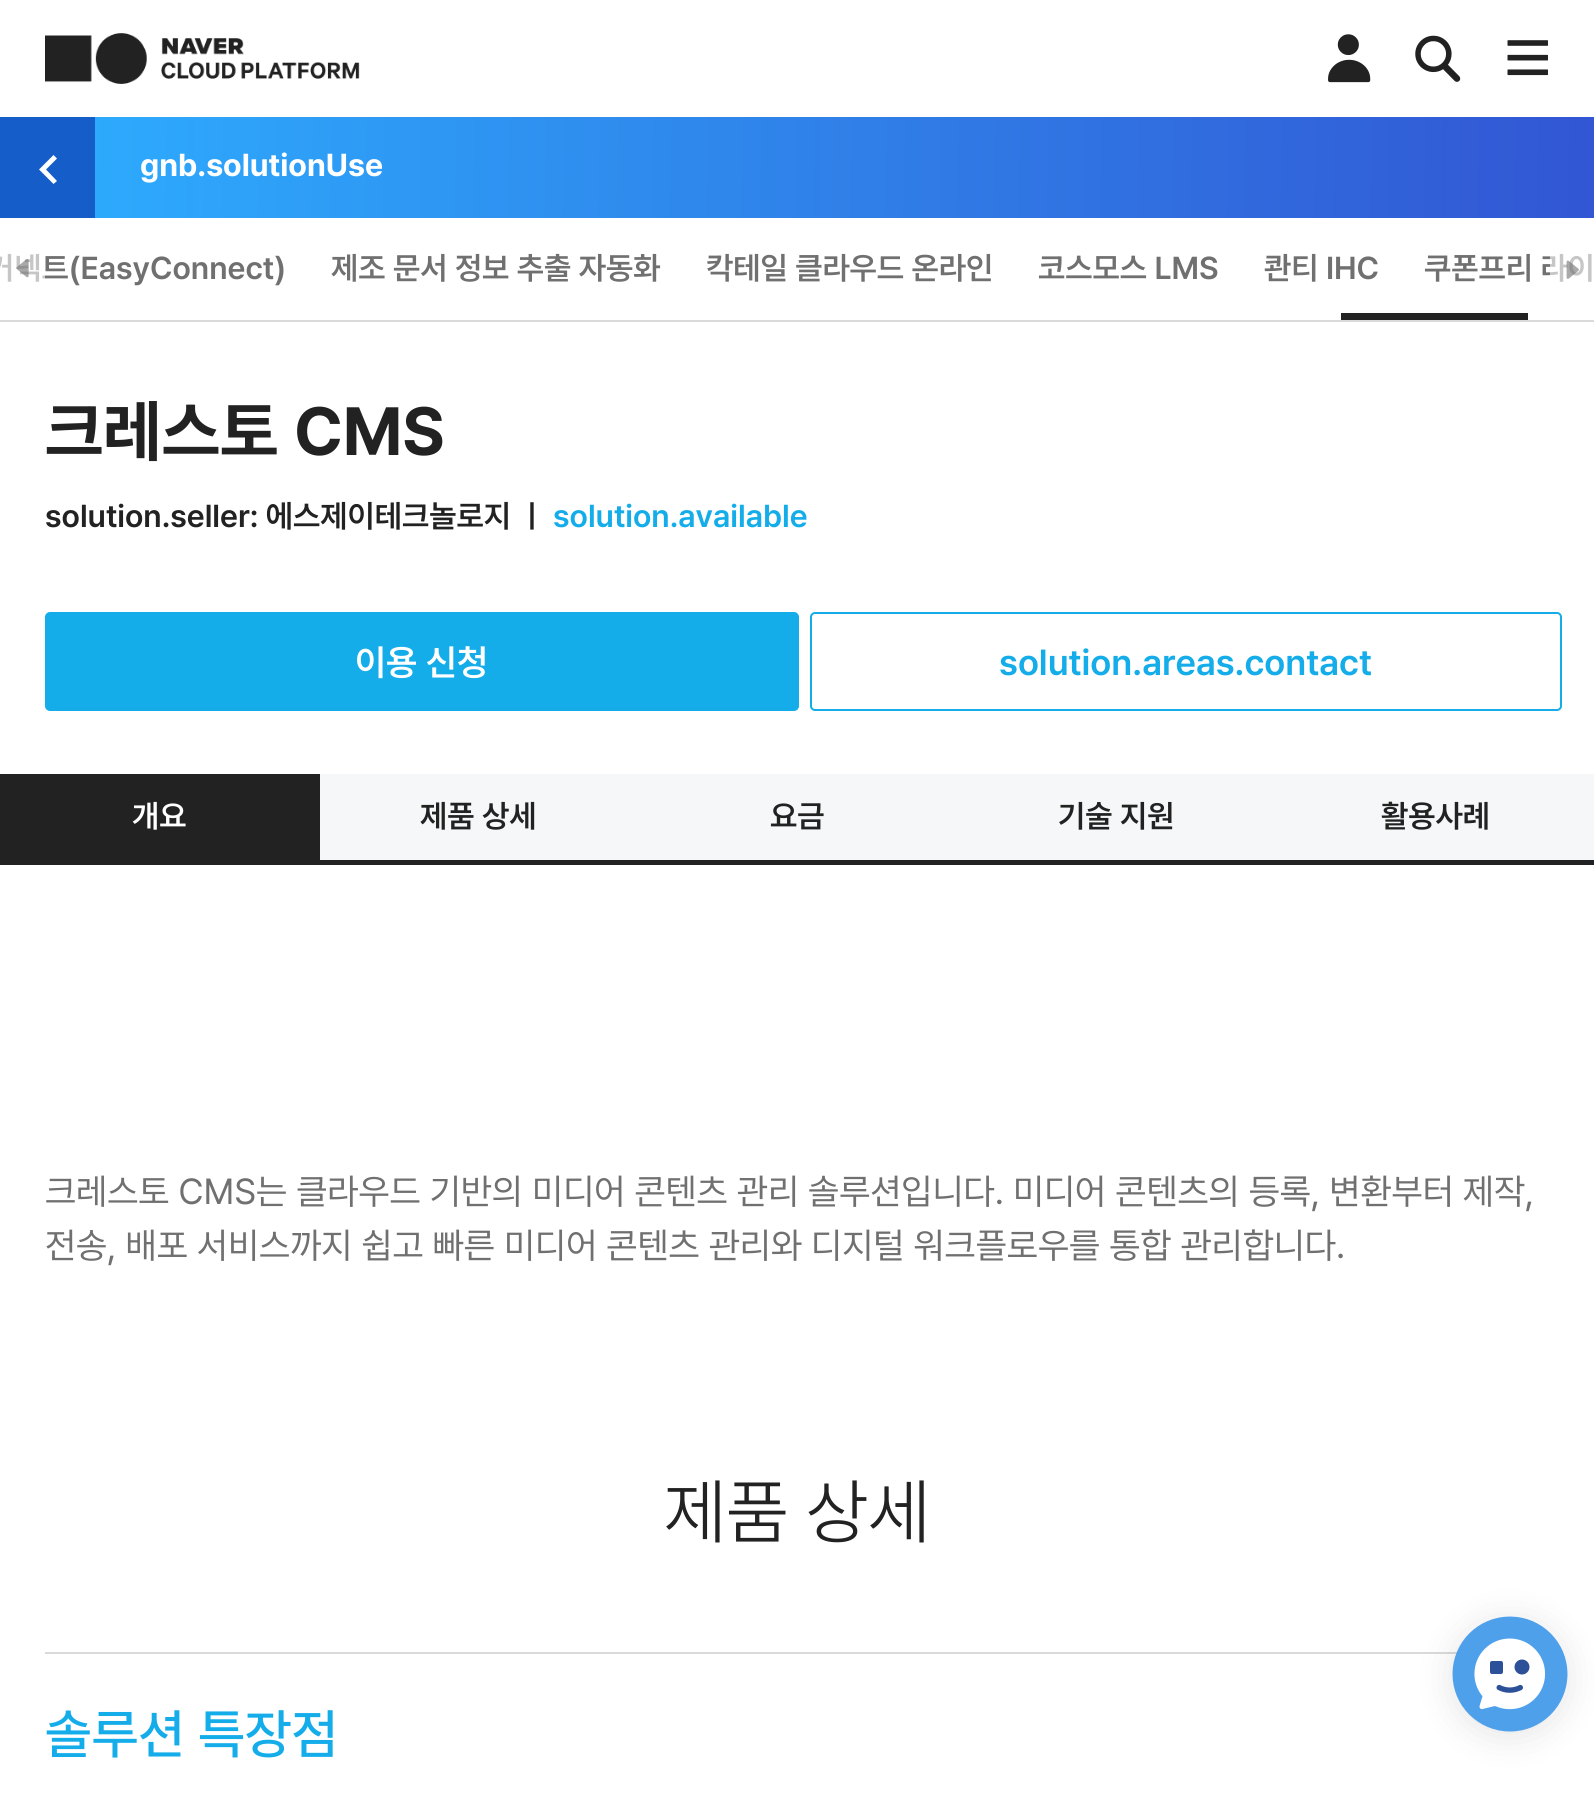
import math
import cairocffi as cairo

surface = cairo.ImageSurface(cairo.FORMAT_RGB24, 1594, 1818)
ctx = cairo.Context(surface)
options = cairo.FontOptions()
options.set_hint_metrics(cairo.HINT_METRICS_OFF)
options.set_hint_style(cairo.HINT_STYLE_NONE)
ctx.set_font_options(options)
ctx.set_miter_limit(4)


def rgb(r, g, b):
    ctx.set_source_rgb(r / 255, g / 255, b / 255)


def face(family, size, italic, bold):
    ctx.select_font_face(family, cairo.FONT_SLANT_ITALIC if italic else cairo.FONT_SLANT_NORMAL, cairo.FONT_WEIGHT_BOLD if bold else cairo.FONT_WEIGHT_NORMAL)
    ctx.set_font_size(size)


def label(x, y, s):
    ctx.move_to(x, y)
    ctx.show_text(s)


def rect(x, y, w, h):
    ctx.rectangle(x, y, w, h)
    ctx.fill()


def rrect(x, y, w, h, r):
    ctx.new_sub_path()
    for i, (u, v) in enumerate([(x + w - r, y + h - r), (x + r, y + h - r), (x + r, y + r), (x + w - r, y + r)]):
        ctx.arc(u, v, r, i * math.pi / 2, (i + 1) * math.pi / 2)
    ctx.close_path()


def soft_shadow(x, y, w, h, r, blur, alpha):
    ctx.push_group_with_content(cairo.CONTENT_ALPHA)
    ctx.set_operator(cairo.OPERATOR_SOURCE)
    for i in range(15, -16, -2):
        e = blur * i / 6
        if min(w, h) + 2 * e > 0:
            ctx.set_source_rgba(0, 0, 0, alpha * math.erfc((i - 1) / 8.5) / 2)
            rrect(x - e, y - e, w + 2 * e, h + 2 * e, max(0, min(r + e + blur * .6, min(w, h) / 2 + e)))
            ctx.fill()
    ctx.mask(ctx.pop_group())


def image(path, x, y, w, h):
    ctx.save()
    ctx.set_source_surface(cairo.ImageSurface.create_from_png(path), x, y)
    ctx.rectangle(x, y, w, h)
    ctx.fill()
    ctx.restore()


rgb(255, 255, 255)
ctx.paint()
image('image0.png', 45, 33, 315, 51)
image('image1.png', 1328, 34, 43, 49)
image('image2.png', 1415, 35, 46, 47)
image('image3.png', 1507, 40, 41, 36)
gradient = cairo.LinearGradient(-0.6, 154, 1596, 182)
gradient.add_color_stop_rgba(0, 0.176, 0.686, 1, 1)
gradient.add_color_stop_rgba(1, 0.196, 0.337, 0.831, 1)
ctx.set_source(gradient)
rect(95, 117, 1499, 101)
rgb(21, 93, 201)
rect(0, 117, 95, 101)
rgb(255, 255, 255)
ctx.new_path()
ctx.move_to(57, 158.5)
ctx.line_to(53.5, 155)
ctx.line_to(39, 169.5)
ctx.line_to(53.5, 184)
ctx.line_to(57, 181)
ctx.line_to(46, 169.5)
ctx.close_path()
ctx.fill()
face('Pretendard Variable', 31.5, 0, 1)
label(140, 176, 'gnb.solutionUse')
face('Pretendard Variable SemiBold', 31.5, 0, 0)
rgb(112, 112, 112)
label(-13, 279, '커넥트(EasyConnect)')
label(331, 279, '제조 문서 정보 추출 자동화')
label(706, 279, '칵테일 클라우드 온라인')
label(1038, 279, '코스모스 LMS')
label(1264, 279, '콴티 IHC')
label(1424, 279, '쿠폰프리 라이')
rgb(34, 34, 34)
rect(1341, 313, 187, 7)
ctx.set_source_rgba(1, 1, 1, 0.6)
rect(0, 253, 45, 29)
image('image4.png', 16, 259, 13, 19)
rect(1550, 253, 42, 29)
image('image5.png', 1566, 260, 13, 19)
rgb(218, 218, 218)
rect(0, 320, 1594, 2)
face('Pretendard Variable', 67.5, 0, 1)
rgb(34, 34, 34)
label(45, 455, '크레스토 CMS')
face('Pretendard Variable SemiBold', 31.5, 0, 0)
label(45, 527, 'solution.seller: 에스제이테크놀로지 ㅣ')
rgb(20, 173, 234)
label(553, 527, 'solution.available')
rrect(46, 613, 752, 97, 4)
ctx.fill_preserve()
ctx.stroke()
face('Pretendard Variable SemiBold', 36, 0, 0)
rgb(255, 255, 255)
label(355, 675, '이용 신청')
rrect(811, 613, 750, 97, 4)
rgb(20, 173, 234)
ctx.stroke()
label(999, 675, 'solution.areas.contact')
rgb(246, 247, 248)
rect(320, 774, 1274, 86)
rgb(34, 34, 34)
rect(0, 860, 1594, 5)
rect(0, 774, 320, 86)
face('Pretendard Variable SemiBold', 31.5, 0, 0)
rgb(255, 255, 255)
label(132, 827, '개요')
rgb(34, 34, 34)
label(420, 827, '제품 상세')
label(770, 827, '요금')
label(1058, 827, '기술 지원')
label(1381, 827, '활용사례')
face('Pretendard Variable', 36, 0, 0)
rgb(112, 112, 112)
label(45, 1204, '크레스토 CMS는 클라우드 기반의 미디어 콘텐츠 관리 솔루션입니다. 미디어 콘텐츠의 등록, 변환부터 제작,')
label(45, 1258, '전송, 배포 서비스까지 쉽고 빠른 미디어 콘텐츠 관리와 디지털 워크플로우를 통합 관리합니다.')
face('Pretendard Variable Light', 72, 0, 0)
rgb(34, 34, 34)
label(664, 1537, '제품 상세')
rgb(218, 218, 218)
rect(45, 1652, 1412, 2)
face('Pretendard Variable Medium', 54, 0, 0)
rgb(20, 173, 234)
label(45, 1753, '솔루션 특장점')
rgb(0, 0, 0)
soft_shadow(1451, 1620, 117, 117, 58.5, 17, 0.1)
image('image6.png', 1452, 1616, 116, 116)
surface.write_to_png('render.png')
